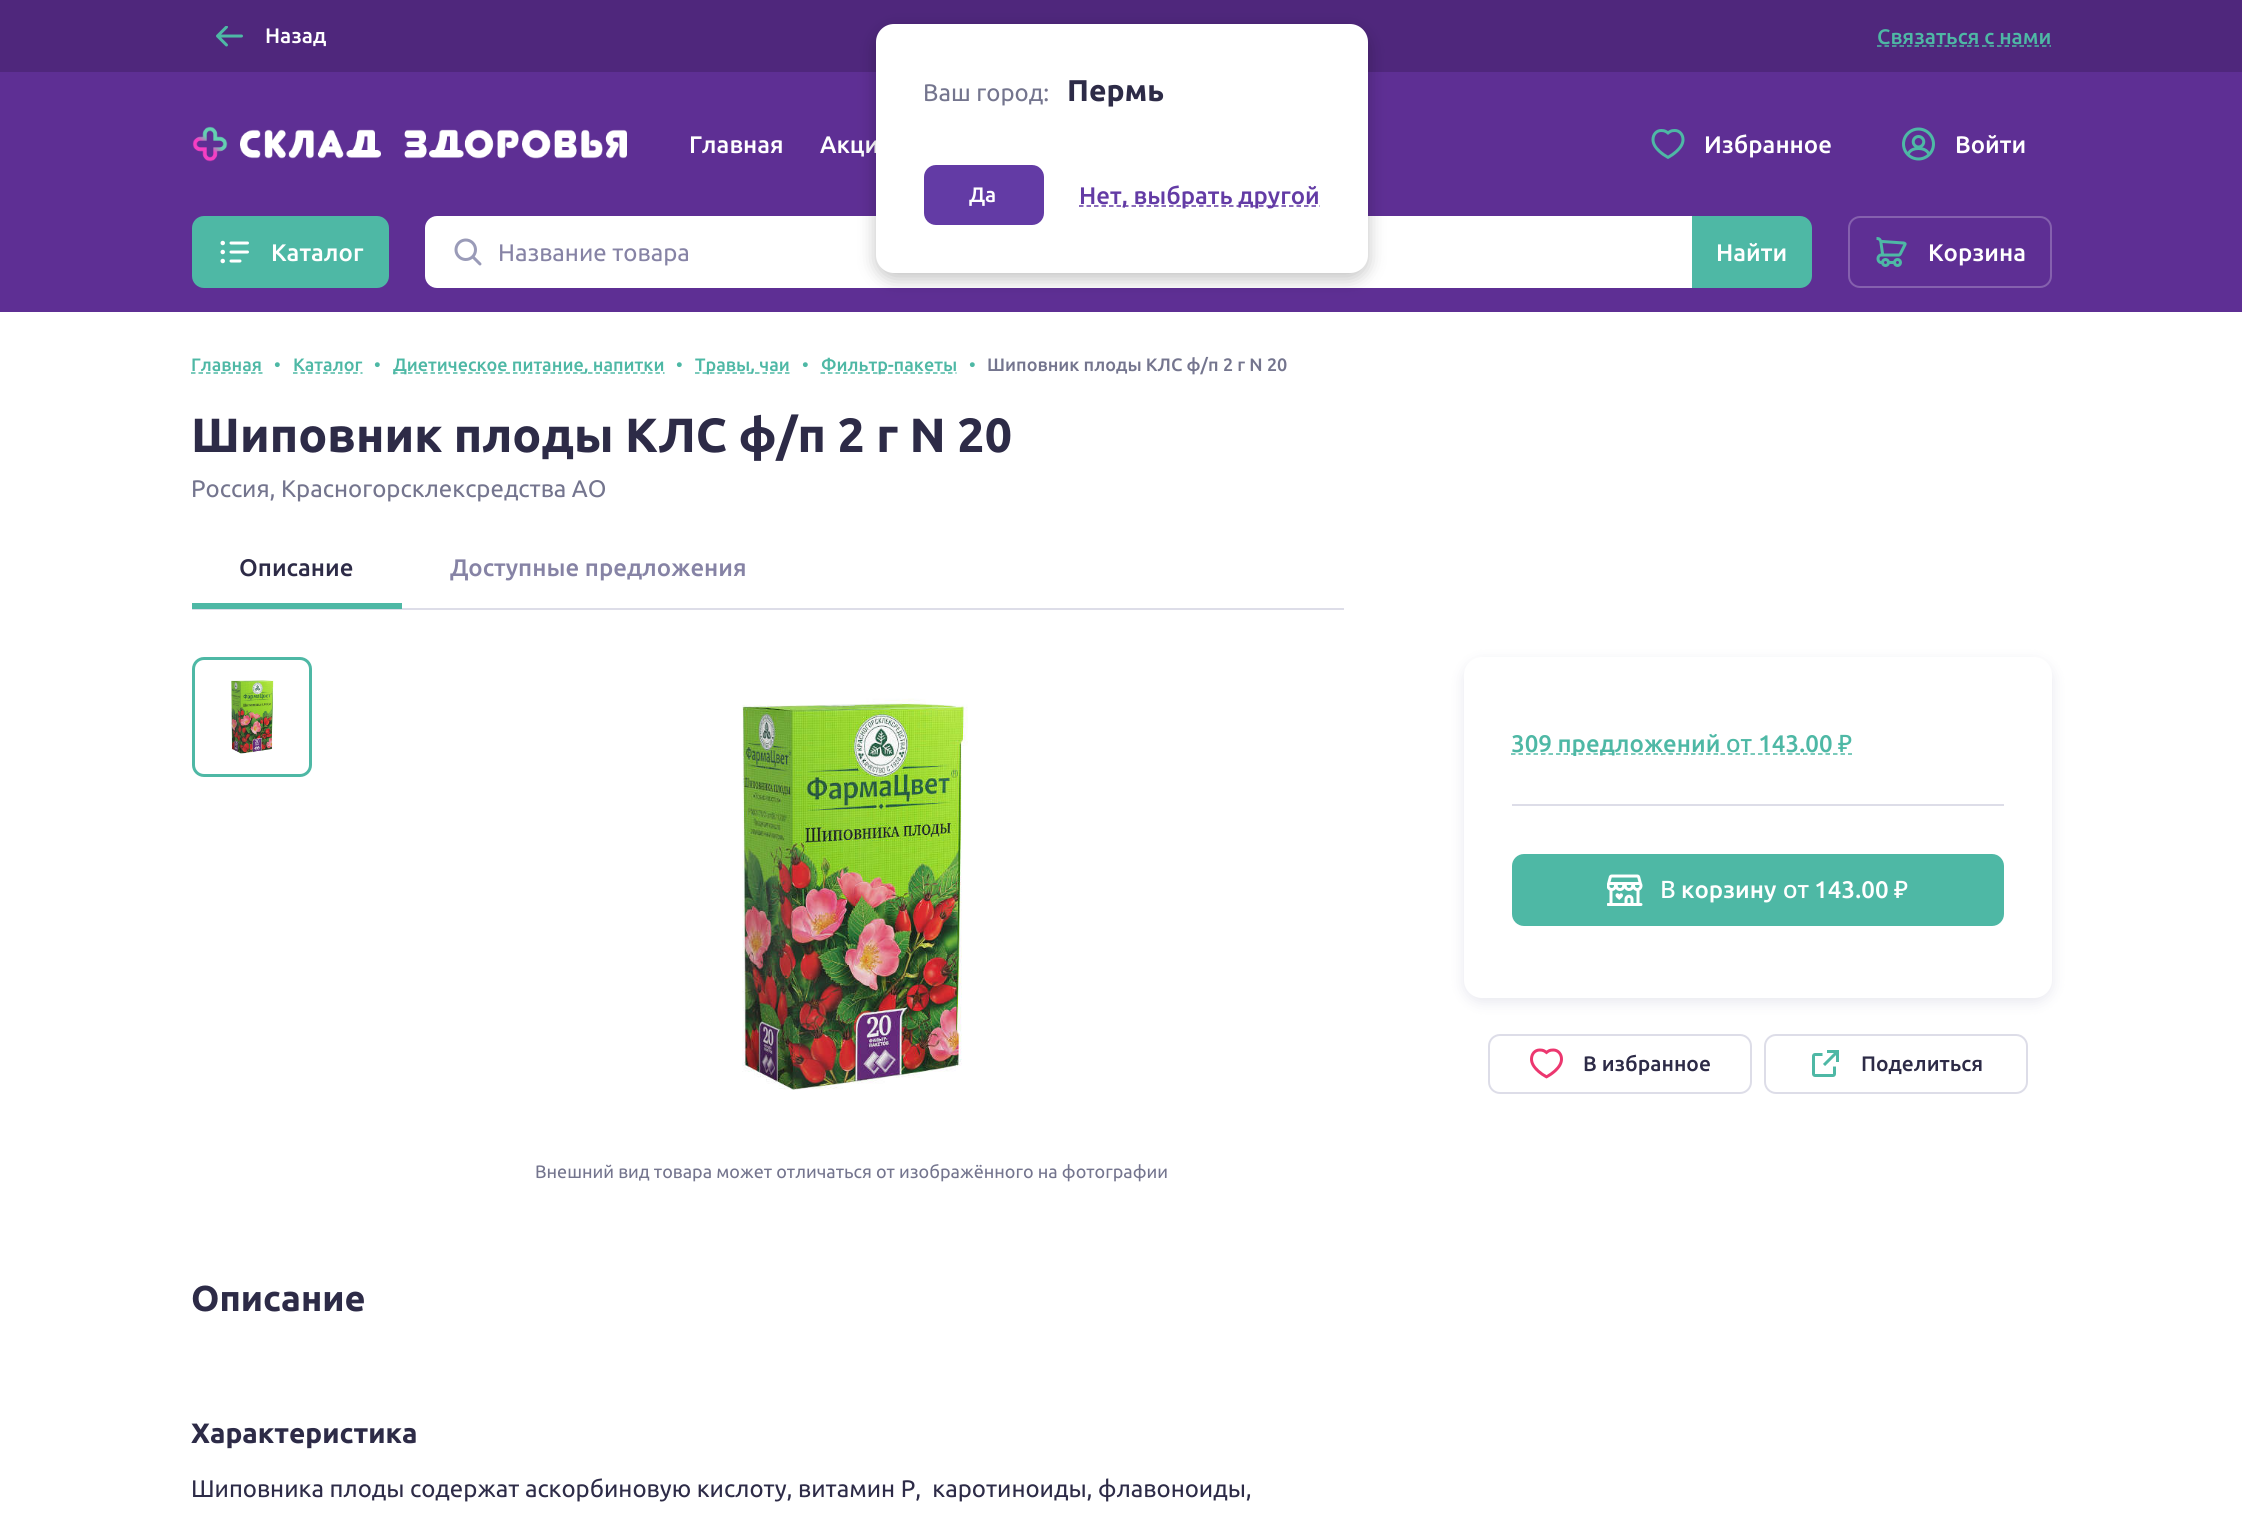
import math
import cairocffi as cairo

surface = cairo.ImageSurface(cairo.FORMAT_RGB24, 2242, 1515)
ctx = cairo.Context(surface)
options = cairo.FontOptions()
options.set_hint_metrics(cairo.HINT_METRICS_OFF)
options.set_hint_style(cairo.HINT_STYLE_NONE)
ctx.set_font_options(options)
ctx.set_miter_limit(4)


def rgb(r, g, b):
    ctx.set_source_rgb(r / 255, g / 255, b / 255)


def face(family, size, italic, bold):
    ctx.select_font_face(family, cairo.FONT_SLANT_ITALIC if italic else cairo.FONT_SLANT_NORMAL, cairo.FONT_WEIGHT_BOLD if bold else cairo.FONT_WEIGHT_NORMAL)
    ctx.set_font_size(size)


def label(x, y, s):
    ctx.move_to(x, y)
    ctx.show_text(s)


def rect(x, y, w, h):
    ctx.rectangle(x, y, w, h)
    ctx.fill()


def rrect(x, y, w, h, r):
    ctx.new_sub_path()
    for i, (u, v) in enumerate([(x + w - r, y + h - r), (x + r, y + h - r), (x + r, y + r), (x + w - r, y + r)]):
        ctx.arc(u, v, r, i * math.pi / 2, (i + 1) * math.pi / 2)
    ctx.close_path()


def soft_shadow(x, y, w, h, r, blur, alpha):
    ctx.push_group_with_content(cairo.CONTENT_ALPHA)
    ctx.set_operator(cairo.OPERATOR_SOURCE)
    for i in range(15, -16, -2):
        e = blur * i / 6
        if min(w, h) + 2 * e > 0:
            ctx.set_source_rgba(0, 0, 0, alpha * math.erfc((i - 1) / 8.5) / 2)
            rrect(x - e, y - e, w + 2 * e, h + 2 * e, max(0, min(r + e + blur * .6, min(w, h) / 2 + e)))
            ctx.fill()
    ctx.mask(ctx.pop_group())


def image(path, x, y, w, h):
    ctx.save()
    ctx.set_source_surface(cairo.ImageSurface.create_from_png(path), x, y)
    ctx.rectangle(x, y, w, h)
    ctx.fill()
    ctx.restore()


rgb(255, 255, 255)
ctx.paint()
rgb(79, 39, 124)
rect(0, 0, 2242, 72)
image('image0.png', 216, 26, 27, 21)
face('Ubuntu Medium', 21, 0, 0)
rgb(255, 255, 255)
label(265, 43, 'Назад')
rgb(78, 184, 165)
label(1877, 44, 'Связаться с нами')
ctx.new_path()
ctx.move_to(1877, 46)
ctx.line_to(2051, 46)
ctx.set_line_width(1.5)
ctx.set_dash([4.5, 3])
ctx.stroke()
rgb(94, 47, 148)
rect(0, 72, 2242, 240)
image('image1.png', 192, 126, 435, 36)
face('Ubuntu Medium', 24, 0, 0)
rgb(255, 255, 255)
label(689, 153, 'Главная')
label(820, 153, 'Акци')
image('image2.png', 1651, 129, 34, 30)
label(1704, 153, 'Избранное')
image('image3.png', 1902, 127, 33, 34)
label(1955, 153, 'Войти')
rgb(78, 184, 165)
ctx.new_path()
ctx.move_to(1691, 216)
ctx.line_to(1800, 216)
ctx.curve_to(1806.5, 216, 1812, 221.5, 1812, 228)
ctx.line_to(1812, 276)
ctx.curve_to(1812, 282.5, 1806.5, 288, 1800, 288)
ctx.line_to(1691, 288)
ctx.close_path()
ctx.fill()
rgb(255, 255, 255)
ctx.new_path()
ctx.move_to(437, 216)
ctx.line_to(1692, 216)
ctx.line_to(1692, 288)
ctx.line_to(437, 288)
ctx.curve_to(430.5, 288, 425, 282.5, 425, 276)
ctx.line_to(425, 228)
ctx.curve_to(425, 221.5, 430.5, 216, 437, 216)
ctx.close_path()
ctx.fill()
rgb(0, 0, 0)
soft_shadow(876, 30, 492, 249, 18, 9, 0.24)
rgb(255, 255, 255)
rrect(876, 24, 492, 249, 18)
ctx.fill()
face('Ubuntu', 24, 0, 0)
rgb(116, 117, 142)
label(923, 101, 'Ваш город:')
face('Ubuntu', 30, 0, 1)
rgb(45, 43, 71)
label(1067, 101, 'Пермь')
rgb(99, 59, 165)
rrect(924, 165, 120, 60, 12)
ctx.fill()
face('Ubuntu Medium', 21, 0, 0)
rgb(255, 255, 255)
label(969, 202, 'Да')
ctx.new_path()
ctx.move_to(1079, 206)
ctx.line_to(1319.5, 206)
rgb(99, 59, 165)
ctx.stroke()
face('Ubuntu Medium', 24, 0, 0)
label(1079, 204, 'Нет, выбрать другой')
rgb(78, 184, 165)
rrect(192, 216, 197, 72, 12)
ctx.fill()
image('image4.png', 220, 240, 29, 24)
rgb(255, 255, 255)
label(271, 261, 'Каталог')
image('image5.png', 454, 238, 28, 28)
face('Ubuntu', 24, 0, 0)
rgb(134, 131, 165)
label(498, 261, 'Название товара')
face('Ubuntu Medium', 24, 0, 0)
rgb(255, 255, 255)
label(1716, 261, 'Найти')
rrect(1849, 217, 202, 70, 11)
rgb(133, 97, 174)
ctx.set_line_width(2)
ctx.set_dash([])
ctx.stroke()
image('image6.png', 1876, 237, 31, 30)
rgb(255, 255, 255)
label(1928, 261, 'Корзина')
face('Ubuntu Medium', 18, 0, 0)
rgb(78, 184, 165)
label(191, 371, 'Главная')
ctx.new_path()
ctx.move_to(191, 373)
ctx.line_to(262.5, 373)
ctx.set_line_width(1.5)
ctx.set_dash([4.5, 3])
ctx.stroke()
label(274, 371, '•')
label(293, 371, 'Каталог')
ctx.new_path()
ctx.move_to(293, 373)
ctx.line_to(362.5, 373)
ctx.stroke()
label(374, 371, '•')
ctx.new_path()
ctx.move_to(393, 373)
ctx.line_to(664.5, 373)
ctx.stroke()
label(393, 371, 'Диетическое питание, напитки')
label(676, 371, '•')
ctx.new_path()
ctx.move_to(695, 373)
ctx.line_to(790, 373)
ctx.stroke()
label(695, 371, 'Травы, чаи')
label(802, 371, '•')
ctx.new_path()
ctx.move_to(820.5, 373)
ctx.line_to(956.5, 373)
ctx.stroke()
label(821, 371, 'Фильтр-пакеты')
label(969, 371, '•')
rgb(116, 117, 142)
label(987, 371, 'Шиповник плоды КЛС ф/п 2 г N 20')
face('Ubuntu', 48, 0, 1)
rgb(45, 43, 71)
label(191, 452, 'Шиповник плоды КЛС ф/п 2 г N 20')
face('Ubuntu', 24, 0, 0)
rgb(116, 117, 142)
label(191, 497, 'Россия, Красногорсклексредства АО')
rgb(221, 221, 232)
rect(192, 608, 1152, 2)
rgb(78, 184, 165)
rect(192, 603, 210, 6)
face('Ubuntu Medium', 24, 0, 0)
rgb(45, 43, 71)
label(239, 576, 'Описание')
rgb(134, 131, 165)
label(450, 576, 'Доступные предложения')
rgb(154, 155, 184)
soft_shadow(1464, 662, 588, 340, 18, 7, 0.24)
rgb(255, 255, 255)
rrect(1464, 657, 588, 341, 18)
ctx.fill()
ctx.new_path()
ctx.move_to(1511, 754)
ctx.line_to(1720.5, 754)
rgb(78, 184, 165)
ctx.stroke()
ctx.save()
ctx.rectangle(1512, 729, 341, 27)
ctx.clip()
label(1511, 752, '309 предложений')
ctx.restore()
face('Noto Sans Medium', 24, 0, 0)
label(1726, 752, 'от')
ctx.new_path()
ctx.move_to(1720.5, 754)
ctx.line_to(1852, 754)
ctx.stroke()
face('Ubuntu Medium', 24, 0, 0)
label(1758, 752, '143.00')
face('Noto Sans Medium', 24, 0, 0)
label(1838, 752, '₽')
rgb(221, 221, 232)
rect(1512, 804, 492, 2)
rgb(78, 184, 165)
rrect(1512, 854, 492, 72, 12)
ctx.fill()
image('image7.png', 1607, 874, 36, 32)
rgb(255, 255, 255)
label(1660, 898, 'В')
face('Ubuntu Medium', 24, 0, 0)
label(1681, 898, 'корзину')
face('Noto Sans Medium', 24, 0, 0)
label(1783, 898, 'от')
face('Ubuntu Medium', 24, 0, 0)
label(1814, 898, '143.00')
face('Noto Sans Medium', 24, 0, 0)
label(1894, 898, '₽')
rrect(1489, 1035, 262, 58, 11)
rgb(221, 221, 232)
ctx.set_line_width(2)
ctx.set_dash([])
ctx.stroke()
image('image8.png', 1530, 1048, 33, 31)
face('Ubuntu Medium', 21, 0, 0)
rgb(45, 43, 71)
label(1583, 1071, 'В избранное')
rrect(1765, 1035, 262, 58, 11)
rgb(221, 221, 232)
ctx.stroke()
image('image9.png', 1812, 1050, 27, 27)
rgb(45, 43, 71)
label(1861, 1071, 'Поделиться')
rrect(193.5, 658.5, 117, 117, 10.5)
rgb(78, 184, 165)
ctx.set_line_width(3)
ctx.stroke()
image('image10.png', 231, 680, 43, 74)
image('image11.png', 742, 698, 226, 392)
face('Ubuntu', 18, 0, 0)
rgb(116, 117, 142)
label(535, 1178, 'Внешний вид товара может отличаться от изображённого на фотографии')
face('Ubuntu', 36, 0, 1)
rgb(45, 43, 71)
label(191, 1311, 'Описание')
face('Ubuntu', 28, 0, 1)
label(191, 1443, 'Характеристика')
face('Ubuntu', 24, 0, 0)
label(191, 1497, 'Шиповника плоды содержат аскорбиновую кислоту, витамин Р,  каротиноиды, флавоноиды,')
surface.write_to_png('render.png')
